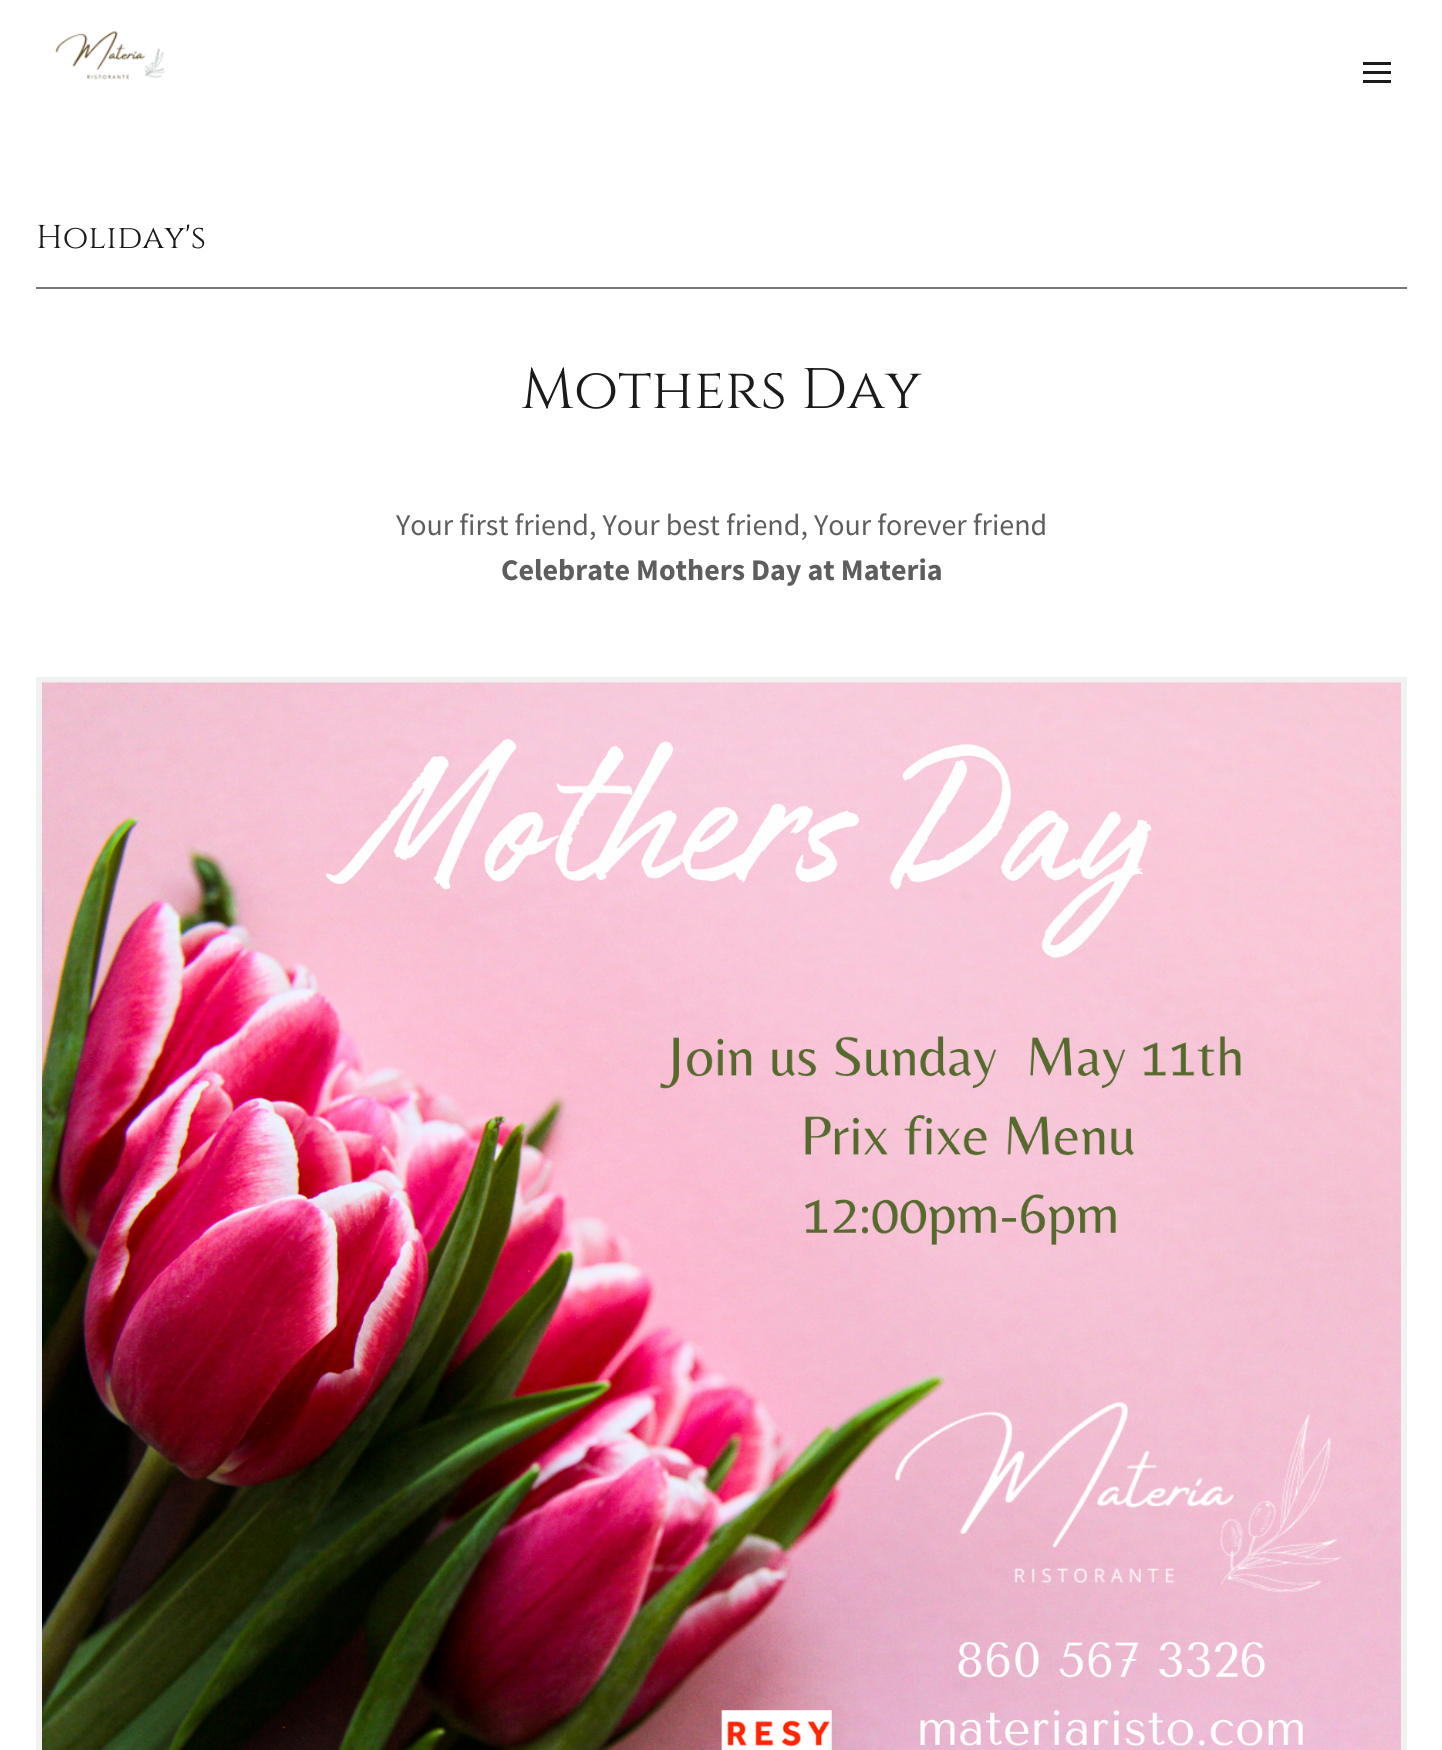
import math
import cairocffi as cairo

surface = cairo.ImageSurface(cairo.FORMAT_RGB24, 1442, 1750)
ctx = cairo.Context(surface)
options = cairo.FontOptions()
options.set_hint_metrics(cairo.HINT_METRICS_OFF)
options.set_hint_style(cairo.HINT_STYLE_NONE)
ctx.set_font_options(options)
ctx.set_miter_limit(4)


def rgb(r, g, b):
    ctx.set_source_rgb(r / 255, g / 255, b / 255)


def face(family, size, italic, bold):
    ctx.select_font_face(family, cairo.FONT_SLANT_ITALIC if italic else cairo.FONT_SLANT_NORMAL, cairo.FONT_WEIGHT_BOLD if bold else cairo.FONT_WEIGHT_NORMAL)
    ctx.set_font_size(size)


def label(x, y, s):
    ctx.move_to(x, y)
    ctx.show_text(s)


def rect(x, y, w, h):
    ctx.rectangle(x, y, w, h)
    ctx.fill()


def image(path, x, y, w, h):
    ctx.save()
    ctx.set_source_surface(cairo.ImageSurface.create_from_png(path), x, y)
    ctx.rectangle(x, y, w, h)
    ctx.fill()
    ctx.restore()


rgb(255, 255, 255)
ctx.paint()
image('image0.png', 55, 30, 110, 50)
rgb(27, 27, 27)
rect(1363, 62, 28, 3)
rect(1363, 71, 28, 3)
rect(1363, 80, 28, 3)
face('Cinzel', 33, 0, 0)
label(36, 248, 'Holiday\'s')
rgb(119, 119, 119)
rect(36, 287, 1371, 2)
face('Cinzel', 57, 0, 0)
rgb(27, 27, 27)
label(521, 408, 'Mothers Day')
face('Source Sans Pro', 30, 0, 0)
rgb(94, 94, 94)
label(396, 535, 'Your first friend, Your best friend, Your forever friend')
face('Source Sans Pro', 30, 0, 1)
label(501, 580, 'Celebrate Mothers Day at Materia')
rgb(241, 241, 241)
rect(36, 677, 1371, 1073)
image('image1.png', 42, 682, 1359, 1068)
surface.write_to_png('render.png')
